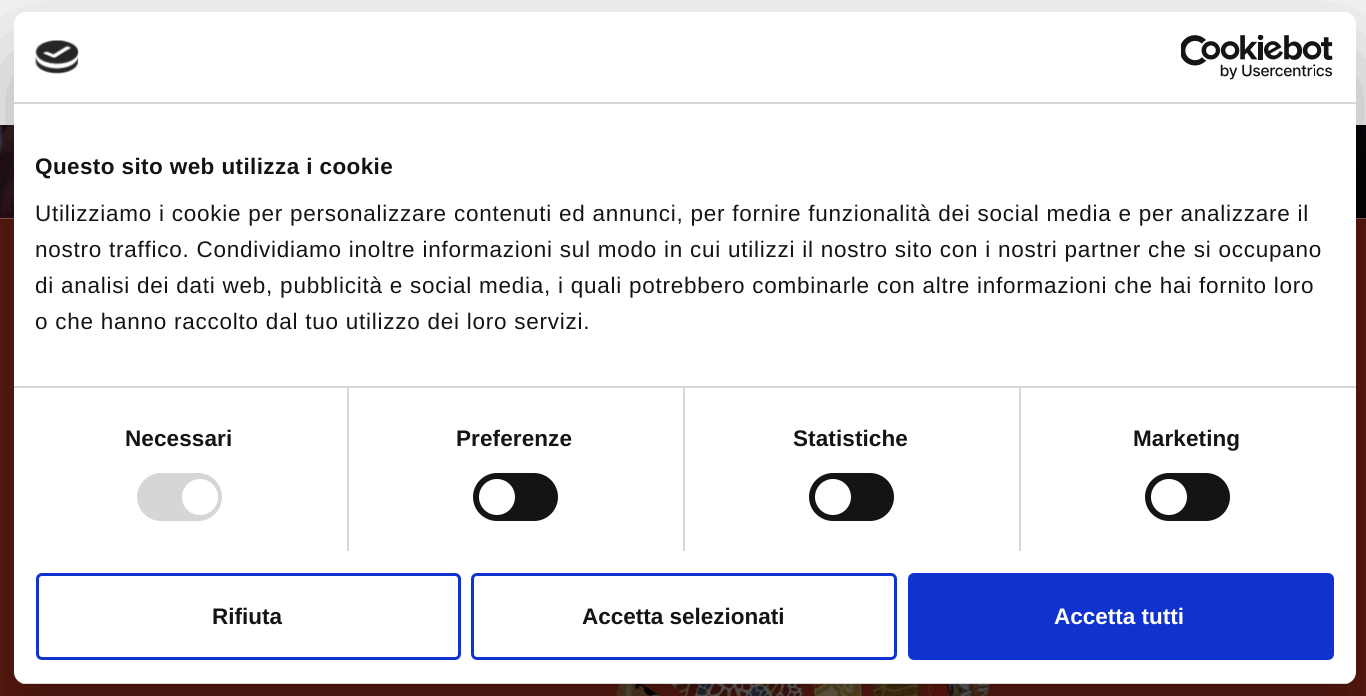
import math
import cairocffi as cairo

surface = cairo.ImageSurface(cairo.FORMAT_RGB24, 1366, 696)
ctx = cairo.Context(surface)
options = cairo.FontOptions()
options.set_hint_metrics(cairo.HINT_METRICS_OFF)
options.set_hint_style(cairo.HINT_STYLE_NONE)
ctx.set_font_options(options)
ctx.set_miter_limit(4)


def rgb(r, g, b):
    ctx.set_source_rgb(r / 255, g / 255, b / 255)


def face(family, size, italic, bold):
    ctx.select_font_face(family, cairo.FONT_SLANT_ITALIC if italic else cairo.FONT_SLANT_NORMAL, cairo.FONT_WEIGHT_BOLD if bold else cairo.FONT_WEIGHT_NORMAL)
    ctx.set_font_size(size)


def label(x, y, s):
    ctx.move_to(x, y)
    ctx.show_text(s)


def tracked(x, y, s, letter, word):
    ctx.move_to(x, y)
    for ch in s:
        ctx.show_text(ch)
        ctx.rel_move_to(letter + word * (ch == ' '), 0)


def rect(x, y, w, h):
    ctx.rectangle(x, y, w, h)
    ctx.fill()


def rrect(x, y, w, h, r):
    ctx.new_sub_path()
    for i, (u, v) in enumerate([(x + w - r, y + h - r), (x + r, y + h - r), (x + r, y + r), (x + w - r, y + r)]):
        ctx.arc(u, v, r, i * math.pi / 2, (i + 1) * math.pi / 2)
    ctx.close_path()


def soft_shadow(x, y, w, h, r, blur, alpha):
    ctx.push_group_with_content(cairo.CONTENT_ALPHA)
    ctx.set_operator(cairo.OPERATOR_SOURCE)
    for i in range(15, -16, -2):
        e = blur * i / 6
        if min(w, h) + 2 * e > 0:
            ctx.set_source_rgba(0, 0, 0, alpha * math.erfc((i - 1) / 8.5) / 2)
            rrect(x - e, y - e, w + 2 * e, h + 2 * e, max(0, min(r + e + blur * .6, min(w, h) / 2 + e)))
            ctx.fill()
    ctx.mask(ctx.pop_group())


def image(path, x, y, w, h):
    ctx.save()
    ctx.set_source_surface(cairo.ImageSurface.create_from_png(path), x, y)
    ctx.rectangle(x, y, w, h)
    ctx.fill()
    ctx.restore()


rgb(255, 255, 255)
ctx.paint()
rgb(246, 246, 246)
rect(0, 0, 1366, 125)
image('image0.png', 0, 125, 1366, 94)
image('image1.png', 0, 218, 1366, 478)
rgb(0, 0, 0)
soft_shadow(14, 60, 1342, 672, 12, 51, 0.3)
rgb(255, 255, 255)
rrect(14, 12, 1342, 672, 12)
ctx.fill()
rgb(214, 214, 214)
rect(14, 102, 1342, 2)
image('image2.png', 34, 40, 45, 34)
image('image3.png', 1181, 35, 152, 45)
rect(347, 387, 2, 164)
rect(683, 387, 2, 164)
rect(1019, 387, 2, 164)
rect(14, 386, 1342, 2)
face('Liberation Sans', 22.5, 0, 1)
rgb(20, 20, 20)
tracked(35, 174, 'Questo sito web utilizza i cookie', 0.4, 0)
face('Liberation Sans', 22.5, 0, 0)
tracked(35, 221, 'Utilizziamo i cookie per personalizzare contenuti ed annunci, per fornire funzionalità dei social media e per analizzare il', 0.75, 0)
tracked(35, 257, 'nostro traffico. Condividiamo inoltre informazioni sul modo in cui utilizzi il nostro sito con i nostri partner che si occupano', 0.75, 0)
tracked(35, 293, 'di analisi dei dati web, pubblicità e social media, i quali potrebbero combinarle con altre informazioni che hai fornito loro', 0.75, 0)
tracked(35, 329, 'o che hanno raccolto dal tuo utilizzo dei loro servizi.', 0.75, 0)
face('Liberation Sans', 22.5, 0, 1)
tracked(125, 446, 'Necessari', 0.1, 0)
rgb(214, 214, 214)
rrect(137, 473, 85, 48, 24)
ctx.fill()
rgb(255, 255, 255)
ctx.arc(200, 497, 18, 0, 2 * math.pi)
ctx.fill()
rgb(20, 20, 20)
tracked(456, 446, 'Preferenze', 0.1, 0)
rrect(473, 473, 85, 48, 24)
ctx.fill()
rgb(255, 255, 255)
ctx.arc(497, 497, 18, 0, 2 * math.pi)
ctx.fill()
rgb(20, 20, 20)
tracked(793, 446, 'Statistiche', 0.1, 0)
rrect(809, 473, 85, 48, 24)
ctx.fill()
rgb(255, 255, 255)
ctx.arc(833, 497, 18, 0, 2 * math.pi)
ctx.fill()
rgb(20, 20, 20)
tracked(1133, 446, 'Marketing', 0.1, 0)
rrect(1145, 473, 85, 48, 24)
ctx.fill()
rgb(255, 255, 255)
ctx.arc(1169, 497, 18, 0, 2 * math.pi)
ctx.fill()
ctx.save()
rrect(14, 12, 1342, 672, 12)
ctx.clip()
rgb(214, 214, 214)
rect(14, 683, 1342, 1)
ctx.restore()
rrect(37.5, 574.5, 422, 84, 4.5)
rgb(16, 50, 207)
ctx.set_line_width(3)
ctx.stroke()
rgb(20, 20, 20)
label(212, 624, 'Rifiuta')
rrect(472.5, 574.5, 423, 84, 4.5)
rgb(16, 50, 207)
ctx.stroke()
rgb(20, 20, 20)
label(582, 624, 'Accetta selezionati')
rgb(16, 50, 207)
rrect(909.5, 574.5, 423, 84, 4.5)
ctx.fill_preserve()
ctx.stroke()
rgb(255, 255, 255)
label(1054, 624, 'Accetta tutti')
surface.write_to_png('render.png')
